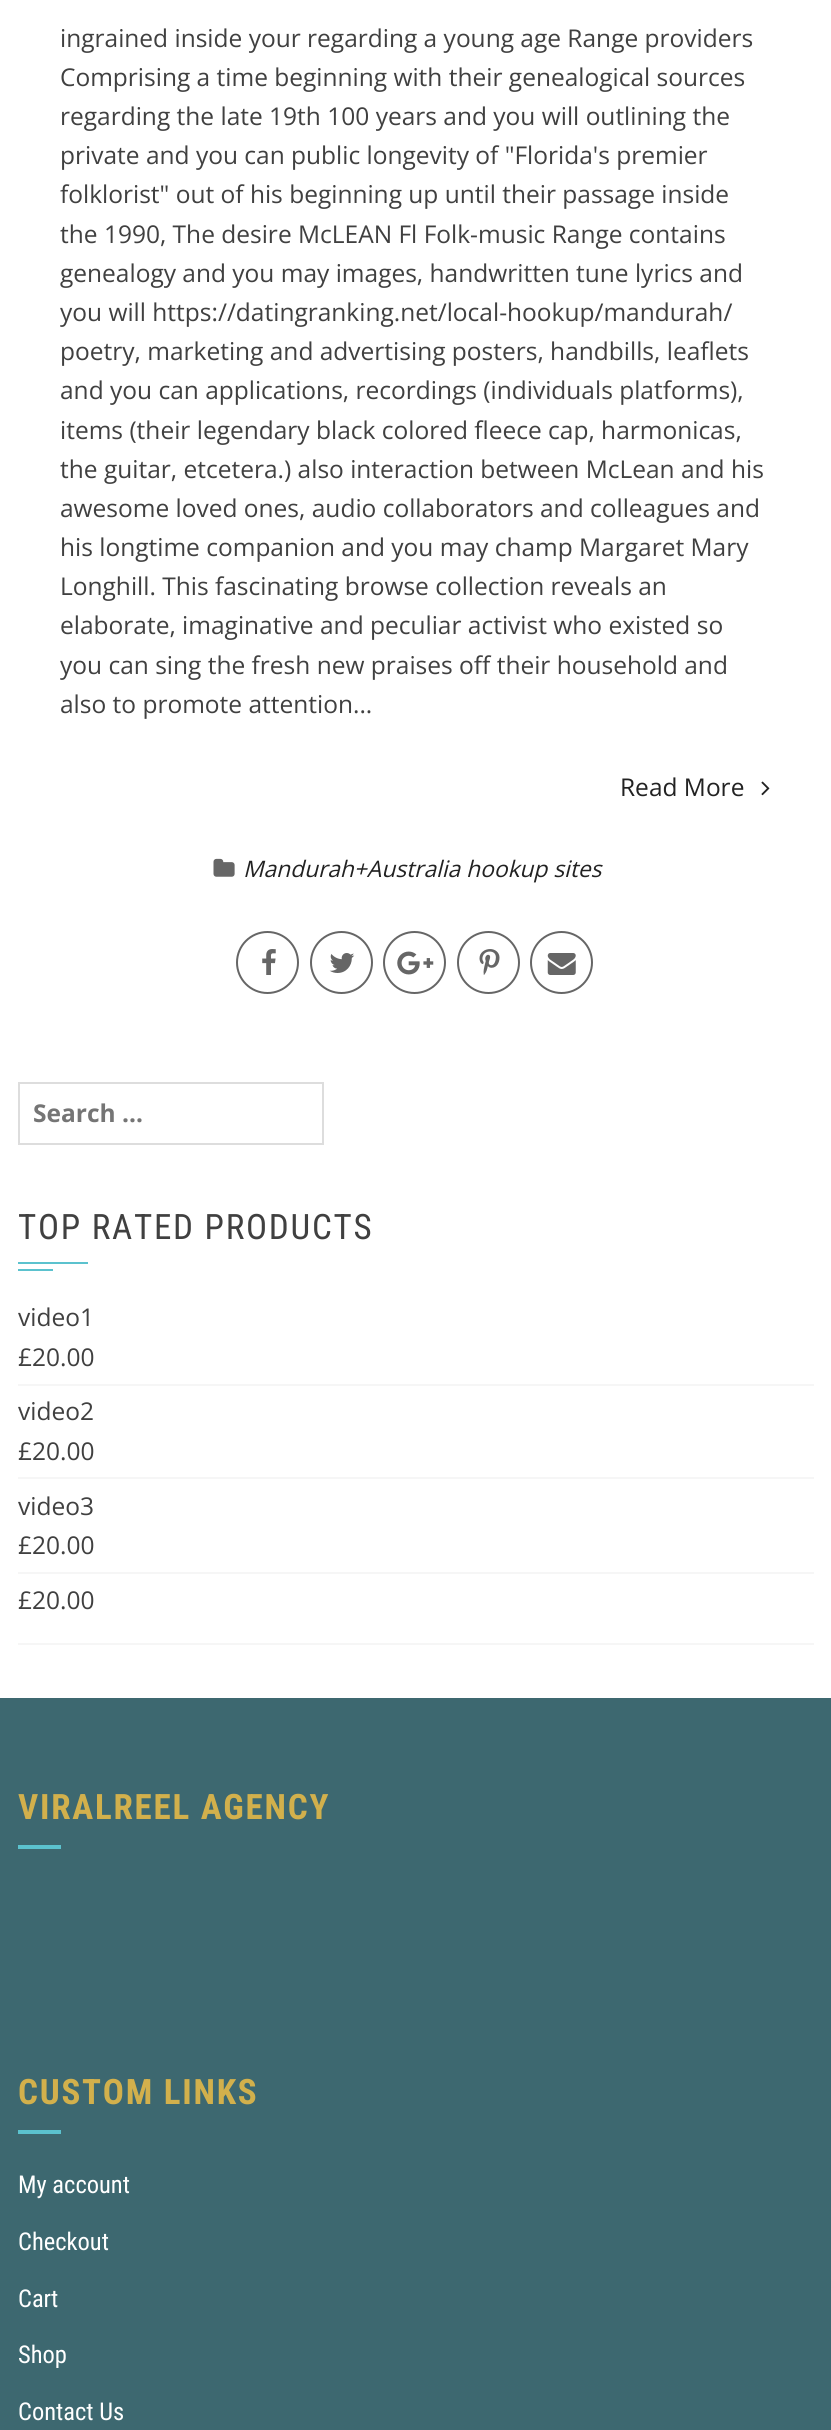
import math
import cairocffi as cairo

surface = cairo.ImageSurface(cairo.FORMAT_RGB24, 831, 2430)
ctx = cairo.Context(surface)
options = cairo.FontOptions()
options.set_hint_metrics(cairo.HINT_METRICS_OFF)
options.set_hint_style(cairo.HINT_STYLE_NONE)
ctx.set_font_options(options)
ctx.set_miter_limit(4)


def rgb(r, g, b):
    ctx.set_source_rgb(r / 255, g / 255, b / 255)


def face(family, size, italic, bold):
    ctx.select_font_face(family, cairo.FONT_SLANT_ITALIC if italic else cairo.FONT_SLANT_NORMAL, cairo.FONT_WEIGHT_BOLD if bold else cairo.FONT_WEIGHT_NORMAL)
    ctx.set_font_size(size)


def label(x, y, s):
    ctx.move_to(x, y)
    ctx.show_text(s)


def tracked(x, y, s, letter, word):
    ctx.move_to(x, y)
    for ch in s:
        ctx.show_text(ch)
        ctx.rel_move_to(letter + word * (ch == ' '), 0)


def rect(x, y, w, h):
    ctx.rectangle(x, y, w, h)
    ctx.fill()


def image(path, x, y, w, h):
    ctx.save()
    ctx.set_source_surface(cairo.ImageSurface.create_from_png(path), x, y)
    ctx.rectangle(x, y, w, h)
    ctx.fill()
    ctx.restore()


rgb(255, 255, 255)
ctx.paint()
face('Open Sans', 24.5, 0, 0)
rgb(64, 64, 64)
label(60, 47, 'ingrained inside your regarding a young age Range providers')
label(60, 86, 'Comprising a time beginning with their genealogical sources')
label(60, 125, 'regarding the late 19th 100 years and you will outlining the')
label(60, 164, 'private and you can public longevity of "Florida\'s premier')
label(60, 203, 'folklorist" out of his beginning up until their passage inside')
label(60, 243, 'the 1990, The desire McLEAN Fl Folk-music Range contains')
label(60, 282, 'genealogy and you may images, handwritten tune lyrics and')
label(60, 321, 'you will https://datingranking.net/local-hookup/mandurah/')
label(60, 360, 'poetry, marketing and advertising posters, handbills, leaflets')
label(60, 399, 'and you can applications, recordings (individuals platforms),')
label(60, 439, 'items (their legendary black colored fleece cap, harmonicas,')
label(60, 478, 'the guitar, etcetera.) also interaction between McLean and his')
label(60, 517, 'awesome loved ones, audio collaborators and colleagues and')
label(60, 556, 'his longtime companion and you may champ Margaret Mary')
label(60, 595, 'Longhill. This fascinating browse collection reveals an')
label(60, 634, 'elaborate, imaginative and peculiar activist who existed so')
label(60, 674, 'you can sing the fresh new praises off their household and')
label(60, 713, 'also to promote attention...')
rgb(34, 34, 34)
label(620, 796, 'Read More')
image('image0.png', 761, 781, 9, 15)
image('image1.png', 213, 858, 22, 19)
face('Open Sans', 22.75, 1, 0)
label(243, 877, 'Mandurah+Australia hookup sites')
ctx.new_path()
ctx.arc(267.5, 962.5, 30.5, 0, 2 * math.pi)
rgb(102, 102, 102)
ctx.stroke()
image('image2.png', 262, 949, 14, 26)
ctx.arc(341.5, 962.5, 30.5, 0, 2 * math.pi)
ctx.stroke()
image('image3.png', 329, 953, 26, 20)
ctx.arc(414.5, 962.5, 30.5, 0, 2 * math.pi)
ctx.stroke()
image('image4.png', 397, 951, 37, 24)
ctx.arc(488.5, 962.5, 30.5, 0, 2 * math.pi)
ctx.stroke()
image('image5.png', 479, 949, 21, 26)
ctx.arc(561.5, 962.5, 30.5, 0, 2 * math.pi)
ctx.stroke()
image('image6.png', 547, 953, 29, 22)
ctx.rectangle(19, 1083, 304, 61)
rgb(221, 221, 221)
ctx.stroke()
face('Open Sans', 24.5, 0, 1)
rgb(117, 117, 117)
label(33, 1122, 'Search …')
face('Roboto Condensed', 35, 0, 0)
rgb(64, 64, 64)
tracked(18, 1239, 'TOP RATED PRODUCTS', 1.75, 0)
rgb(91, 194, 206)
rect(18, 1262, 70, 2)
rect(18, 1269, 35, 2)
rgb(246, 246, 246)
rect(18, 1384, 796, 2)
face('Open Sans', 24.5, 0, 0)
rgb(64, 64, 64)
label(18, 1326, 'video1')
label(18, 1366, '£20.00')
rgb(246, 246, 246)
rect(18, 1477, 796, 2)
rgb(64, 64, 64)
label(18, 1420, 'video2')
label(18, 1460, '£20.00')
rgb(246, 246, 246)
rect(18, 1572, 796, 2)
rgb(64, 64, 64)
label(18, 1515, 'video3')
label(18, 1554, '£20.00')
rgb(246, 246, 246)
rect(18, 1643, 796, 2)
rgb(64, 64, 64)
label(18, 1609, '£20.00')
rgb(61, 104, 112)
rect(0, 1698, 831, 732)
face('Roboto Condensed', 35, 0, 1)
rgb(210, 176, 76)
tracked(18, 1819, 'VIRALREEL AGENCY', 1.75, 0)
rgb(91, 194, 206)
rect(18, 1845, 43, 4)
rgb(210, 176, 76)
tracked(18, 2104, 'CUSTOM LINKS', 1.75, 0)
rgb(91, 194, 206)
rect(18, 2130, 43, 4)
face('Roboto Condensed', 24.5, 0, 0)
rgb(255, 255, 255)
label(18, 2193, 'My account')
label(18, 2250, 'Checkout')
label(18, 2307, 'Cart')
label(18, 2363, 'Shop')
label(18, 2420, 'Contact Us')
surface.write_to_png('render.png')
